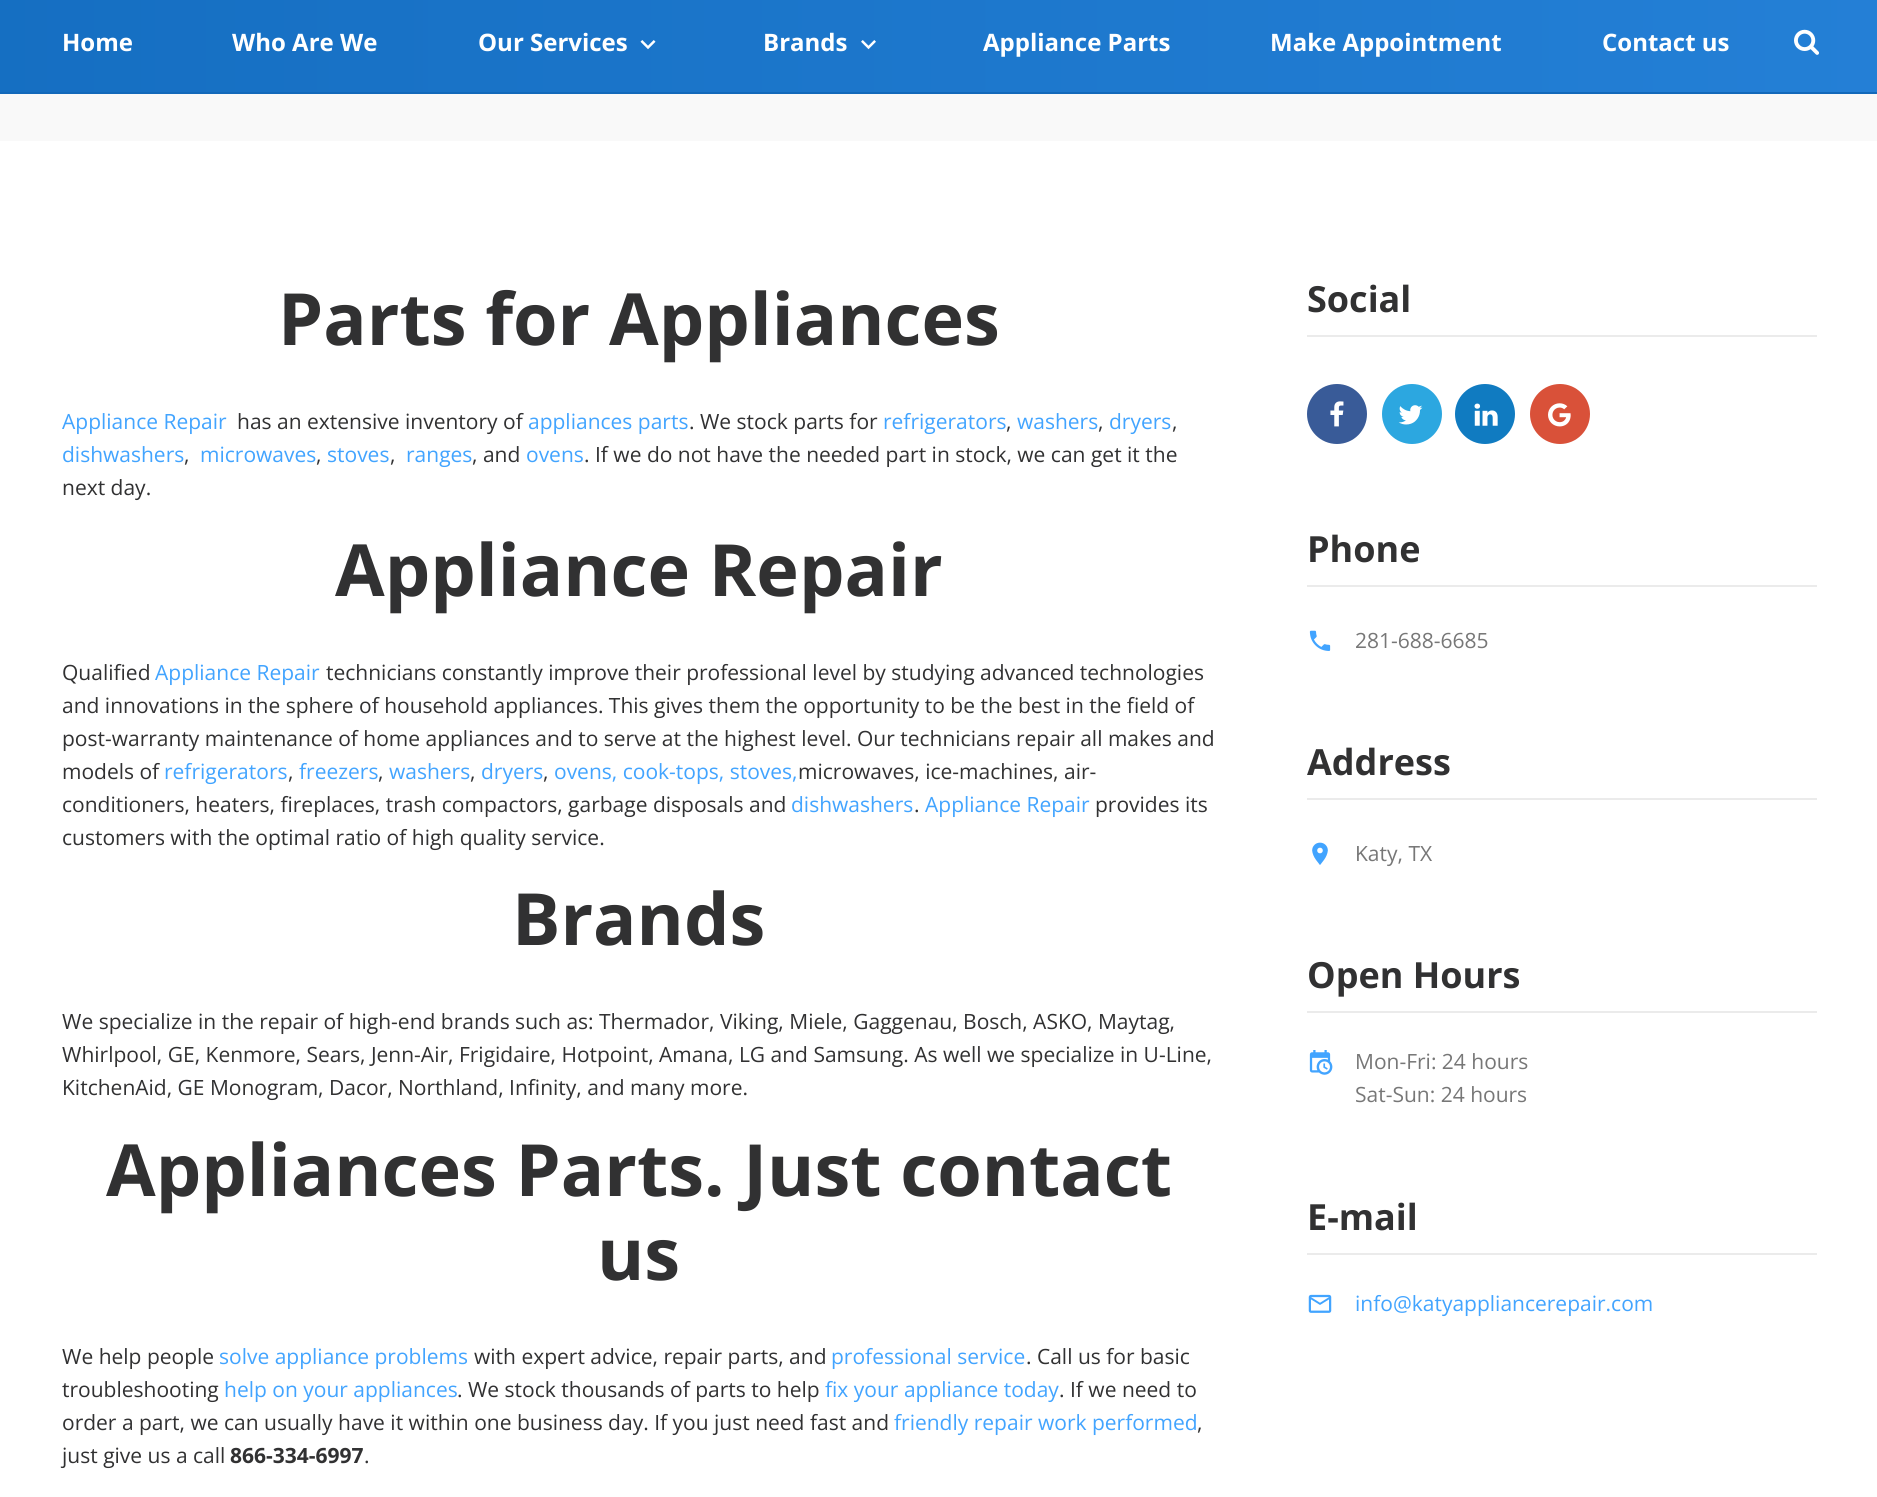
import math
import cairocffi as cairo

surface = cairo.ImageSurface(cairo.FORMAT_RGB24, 1877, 1497)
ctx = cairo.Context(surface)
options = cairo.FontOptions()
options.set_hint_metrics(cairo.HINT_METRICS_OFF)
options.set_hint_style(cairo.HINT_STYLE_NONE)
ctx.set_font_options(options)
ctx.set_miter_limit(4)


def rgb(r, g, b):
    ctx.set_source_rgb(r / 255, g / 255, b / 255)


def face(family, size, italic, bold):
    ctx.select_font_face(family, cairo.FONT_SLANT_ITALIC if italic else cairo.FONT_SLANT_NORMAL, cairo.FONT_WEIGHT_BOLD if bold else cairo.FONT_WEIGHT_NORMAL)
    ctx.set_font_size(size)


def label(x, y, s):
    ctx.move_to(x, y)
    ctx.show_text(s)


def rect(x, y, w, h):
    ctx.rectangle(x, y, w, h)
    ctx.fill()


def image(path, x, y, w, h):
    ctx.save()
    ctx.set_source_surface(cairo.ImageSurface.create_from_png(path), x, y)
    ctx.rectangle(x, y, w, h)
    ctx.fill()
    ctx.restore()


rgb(255, 255, 255)
ctx.paint()
rgb(19, 105, 186)
rect(0, 92, 1877, 2)
gradient = cairo.LinearGradient(-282, 46, 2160, 46)
gradient.add_color_stop_rgba(0, 0.075, 0.424, 0.749, 1)
gradient.add_color_stop_rgba(1, 0.149, 0.51, 0.851, 1)
ctx.set_source(gradient)
rect(0, 0, 1877, 92)
face('Open Sans', 24, 0, 1)
rgb(255, 255, 255)
label(62, 51, 'Home')
label(232, 51, 'Who Are We')
label(478, 51, 'Our Services')
image('image0.png', 640, 40, 16, 10)
label(763, 51, 'Brands')
image('image1.png', 861, 40, 15, 10)
label(983, 51, 'Appliance Parts')
label(1270, 51, 'Make Appointment')
label(1602, 51, 'Contact us')
image('image2.png', 1794, 29, 25, 26)
rgb(249, 249, 249)
rect(0, 94, 1877, 47)
face('Open Sans', 72, 0, 1)
rgb(49, 49, 50)
label(278, 345, 'Parts for Appliances')
face('Open Sans', 21, 0, 0)
rgb(66, 164, 255)
label(62, 429, 'Appliance Repair')
rgb(49, 49, 50)
label(237, 429, 'has an extensive inventory of')
rgb(66, 164, 255)
label(528, 429, 'appliances parts')
rgb(49, 49, 50)
label(689, 429, '. We stock parts for')
rgb(66, 164, 255)
label(883, 429, 'refrigerators')
rgb(49, 49, 50)
label(1006, 429, ',')
rgb(66, 164, 255)
label(1017, 429, 'washers')
rgb(49, 49, 50)
label(1098, 429, ',')
rgb(66, 164, 255)
label(1109, 429, 'dryers')
rgb(49, 49, 50)
label(1172, 429, ',')
rgb(66, 164, 255)
label(62, 462, 'dishwashers')
rgb(49, 49, 50)
label(184, 462, ',')
rgb(66, 164, 255)
label(200, 462, 'microwaves')
rgb(49, 49, 50)
label(316, 462, ',')
rgb(66, 164, 255)
label(327, 462, 'stoves')
rgb(49, 49, 50)
label(390, 462, ',')
rgb(66, 164, 255)
label(406, 462, 'ranges')
rgb(49, 49, 50)
label(472, 462, ', and')
rgb(66, 164, 255)
label(526, 462, 'ovens')
rgb(49, 49, 50)
label(584, 462, '. If we do not have the needed part in stock, we can get it the')
label(62, 495, 'next day.')
face('Open Sans', 72, 0, 1)
label(335, 596, 'Appliance Repair')
face('Open Sans', 21, 0, 0)
label(62, 680, 'Qualified')
rgb(66, 164, 255)
label(155, 680, 'Appliance Repair')
rgb(49, 49, 50)
label(326, 680, 'technicians constantly improve their professional level by studying advanced technologies')
label(62, 713, 'and innovations in the sphere of household appliances. This gives them the opportunity to be the best in the field of')
label(62, 746, 'post-warranty maintenance of home appliances and to serve at the highest level. Our technicians repair all makes and')
label(62, 779, 'models of')
rgb(66, 164, 255)
label(164, 779, 'refrigerators')
rgb(49, 49, 50)
label(288, 779, ',')
rgb(66, 164, 255)
label(299, 779, 'freezers')
rgb(49, 49, 50)
label(378, 779, ',')
rgb(66, 164, 255)
label(389, 779, 'washers')
rgb(49, 49, 50)
label(470, 779, ',')
rgb(66, 164, 255)
label(481, 779, 'dryers')
rgb(49, 49, 50)
label(543, 779, ',')
rgb(66, 164, 255)
label(554, 779, 'ovens, cook-tops, stoves,')
rgb(49, 49, 50)
label(798, 779, 'microwaves, ice-machines, air-')
label(62, 812, 'conditioners, heaters, fireplaces, trash compactors, garbage disposals and')
rgb(66, 164, 255)
label(791, 812, 'dishwashers')
rgb(49, 49, 50)
label(914, 812, '.')
rgb(66, 164, 255)
label(925, 812, 'Appliance Repair')
rgb(49, 49, 50)
label(1095, 812, 'provides its')
label(62, 845, 'customers with the optimal ratio of high quality service.')
face('Open Sans', 72, 0, 1)
label(512, 945, 'Brands')
face('Open Sans', 21, 0, 0)
label(62, 1029, 'We specialize in the repair of high-end brands such as: Thermador, Viking, Miele, Gaggenau, Bosch, ASKO, Maytag,')
label(62, 1062, 'Whirlpool, GE, Kenmore, Sears, Jenn-Air, Frigidaire, Hotpoint, Amana, LG and Samsung. As well we specialize in U-Line,')
label(62, 1095, 'KitchenAid, GE Monogram, Dacor, Northland, Infinity, and many more.')
face('Open Sans', 72, 0, 1)
label(106, 1196, 'Appliances Parts. Just contact')
label(597, 1280, 'us')
face('Open Sans', 21, 0, 0)
label(62, 1364, 'We help people')
rgb(66, 164, 255)
label(219, 1364, 'solve appliance problems')
rgb(49, 49, 50)
label(474, 1364, 'with expert advice, repair parts, and')
rgb(66, 164, 255)
label(831, 1364, 'professional service')
rgb(49, 49, 50)
label(1026, 1364, '. Call us for basic')
label(62, 1397, 'troubleshooting')
rgb(66, 164, 255)
label(224, 1397, 'help on your appliances')
rgb(49, 49, 50)
label(457, 1397, '. We stock thousands of parts to help')
rgb(66, 164, 255)
label(825, 1397, 'fix your appliance today')
rgb(49, 49, 50)
label(1059, 1397, '. If we need to')
label(62, 1430, 'order a part, we can usually have it within one business day. If you just need fast and')
rgb(66, 164, 255)
label(894, 1430, 'friendly repair work performed')
rgb(49, 49, 50)
label(1197, 1430, ',')
label(62, 1463, 'just give us a call')
face('Open Sans', 21, 0, 1)
label(230, 1463, '866-334-6997')
face('Open Sans', 21, 0, 0)
label(364, 1463, '.')
face('Open Sans', 36, 0, 1)
label(1307, 312, 'Social')
rgb(235, 235, 235)
rect(1307, 335, 510, 2)
rgb(57, 91, 152)
ctx.new_path()
ctx.arc(1337, 414, 30, 0, 2 * math.pi)
ctx.fill()
image('image3.png', 1330, 401, 14, 26)
rgb(44, 167, 224)
ctx.arc(1412, 414, 30, 0, 2 * math.pi)
ctx.fill()
image('image4.png', 1398, 405, 25, 20)
rgb(16, 123, 193)
ctx.arc(1485, 414, 30, 0, 2 * math.pi)
ctx.fill()
image('image5.png', 1474, 403, 24, 23)
rgb(217, 81, 57)
ctx.arc(1560, 414, 30, 0, 2 * math.pi)
ctx.fill()
image('image6.png', 1548, 403, 23, 24)
rgb(49, 49, 50)
label(1307, 562, 'Phone')
rgb(235, 235, 235)
rect(1307, 585, 510, 2)
image('image7.png', 1309, 630, 22, 21)
face('Open Sans', 21, 0, 0)
rgb(119, 119, 119)
label(1355, 648, '281-688-6685')
face('Open Sans', 36, 0, 1)
rgb(49, 49, 50)
label(1307, 775, 'Address')
rgb(235, 235, 235)
rect(1307, 798, 510, 2)
image('image8.png', 1312, 842, 16, 23)
face('Open Sans', 21, 0, 0)
rgb(119, 119, 119)
label(1355, 861, 'Katy, TX')
face('Open Sans', 36, 0, 1)
rgb(49, 49, 50)
label(1307, 988, 'Open Hours')
rgb(235, 235, 235)
rect(1307, 1011, 510, 2)
image('image9.png', 1309, 1050, 24, 25)
face('Open Sans', 21, 0, 0)
rgb(119, 119, 119)
label(1355, 1069, 'Mon-Fri: 24 hours')
label(1355, 1102, 'Sat-Sun: 24 hours')
face('Open Sans', 36, 0, 1)
rgb(49, 49, 50)
label(1307, 1230, 'E-mail')
rgb(235, 235, 235)
rect(1307, 1253, 510, 2)
image('image10.png', 1308, 1294, 24, 19)
face('Open Sans', 21, 0, 0)
rgb(66, 164, 255)
label(1355, 1311, 'info@katyappliancerepair.com')
surface.write_to_png('render.png')
